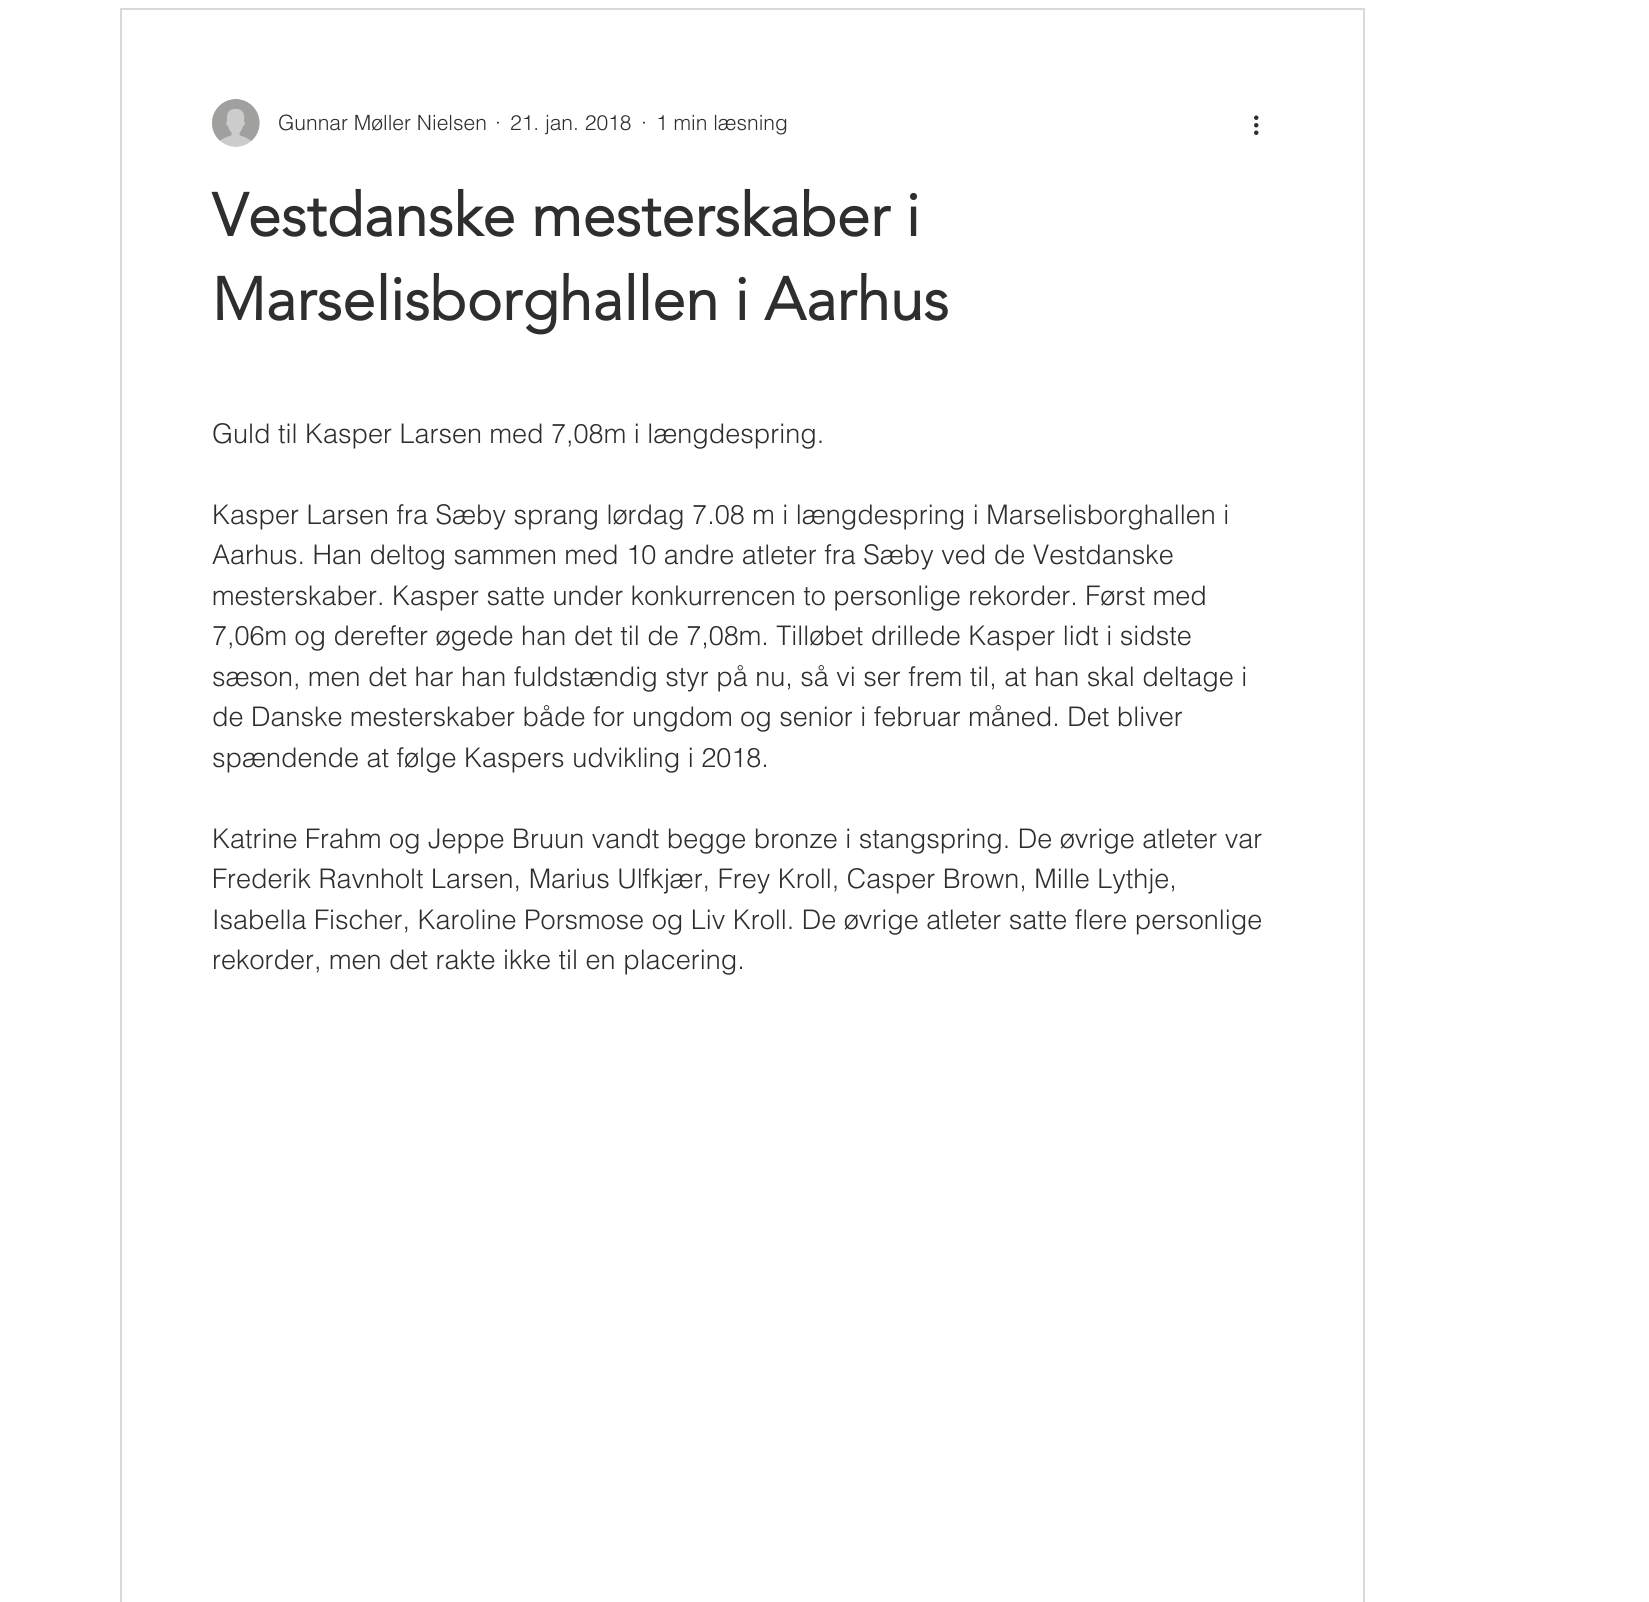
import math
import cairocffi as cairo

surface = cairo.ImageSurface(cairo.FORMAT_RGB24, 1649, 1602)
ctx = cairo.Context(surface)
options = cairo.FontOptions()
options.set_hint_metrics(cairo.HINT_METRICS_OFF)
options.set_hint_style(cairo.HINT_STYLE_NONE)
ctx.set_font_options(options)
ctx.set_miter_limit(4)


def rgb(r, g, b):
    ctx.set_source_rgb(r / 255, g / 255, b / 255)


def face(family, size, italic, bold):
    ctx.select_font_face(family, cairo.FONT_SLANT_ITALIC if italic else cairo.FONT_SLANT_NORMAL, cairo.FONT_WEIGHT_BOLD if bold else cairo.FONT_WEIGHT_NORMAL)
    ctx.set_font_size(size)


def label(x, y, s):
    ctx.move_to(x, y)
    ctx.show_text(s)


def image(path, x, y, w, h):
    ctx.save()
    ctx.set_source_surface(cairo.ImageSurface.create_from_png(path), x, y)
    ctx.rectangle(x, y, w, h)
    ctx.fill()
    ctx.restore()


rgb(255, 255, 255)
ctx.paint()
ctx.rectangle(121, 9, 1243, 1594)
rgb(217, 217, 217)
ctx.stroke()
image('image0.png', 212, 99, 48, 48)
face('helvetica Light', 21, 0, 0)
rgb(47, 46, 46)
label(278, 130, 'Gunnar Møller Nielsen')
label(495, 130, '·')
label(510, 130, '21. jan. 2018')
label(641, 130, '·')
label(656, 130, '1 min læsning')
image('image1.png', 1254, 115, 5, 20)
face('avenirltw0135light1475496', 60, 0, 1)
label(212, 236, 'Vestdanske mesterskaber i')
label(212, 320, 'Marselisborghallen i Aarhus')
face('helvetica Light', 27, 0, 0)
label(212, 443, 'Guld til Kasper Larsen med 7,08m i længdespring.')
label(212, 524, 'Kasper Larsen fra Sæby sprang lørdag 7.08 m i længdespring i Marselisborghallen i')
label(212, 564, 'Aarhus. Han deltog sammen med 10 andre atleter fra Sæby ved de Vestdanske')
label(212, 605, 'mesterskaber. Kasper satte under konkurrencen to personlige rekorder. Først med')
label(212, 645, '7,06m og derefter øgede han det til de 7,08m. Tilløbet drillede Kasper lidt i sidste')
label(212, 686, 'sæson, men det har han fuldstændig styr på nu, så vi ser frem til, at han skal deltage i')
label(212, 726, 'de Danske mesterskaber både for ungdom og senior i februar måned. Det bliver')
label(212, 767, 'spændende at følge Kaspers udvikling i 2018.')
label(212, 848, 'Katrine Frahm og Jeppe Bruun vandt begge bronze i stangspring. De øvrige atleter var')
label(212, 888, 'Frederik Ravnholt Larsen, Marius Ulfkjær, Frey Kroll, Casper Brown, Mille Lythje,')
label(212, 929, 'Isabella Fischer, Karoline Porsmose og Liv Kroll. De øvrige atleter satte flere personlige')
label(212, 969, 'rekorder, men det rakte ikke til en placering.')
surface.write_to_png('render.png')
